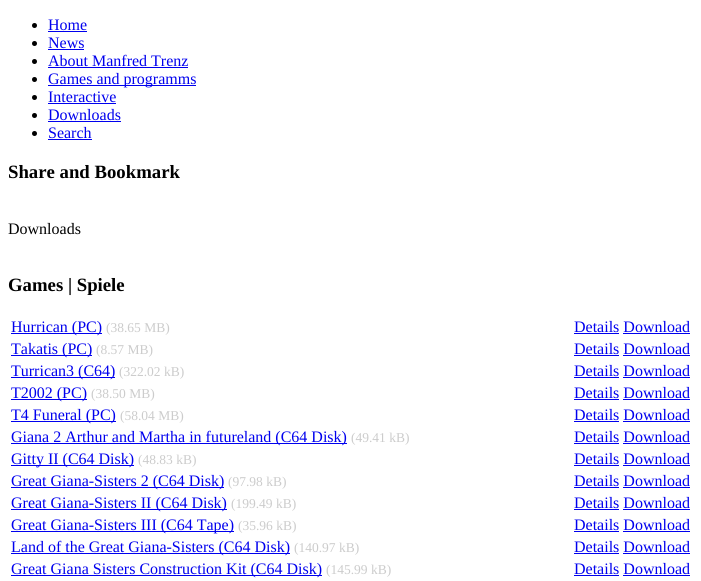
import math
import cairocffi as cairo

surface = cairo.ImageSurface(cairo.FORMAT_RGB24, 701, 581)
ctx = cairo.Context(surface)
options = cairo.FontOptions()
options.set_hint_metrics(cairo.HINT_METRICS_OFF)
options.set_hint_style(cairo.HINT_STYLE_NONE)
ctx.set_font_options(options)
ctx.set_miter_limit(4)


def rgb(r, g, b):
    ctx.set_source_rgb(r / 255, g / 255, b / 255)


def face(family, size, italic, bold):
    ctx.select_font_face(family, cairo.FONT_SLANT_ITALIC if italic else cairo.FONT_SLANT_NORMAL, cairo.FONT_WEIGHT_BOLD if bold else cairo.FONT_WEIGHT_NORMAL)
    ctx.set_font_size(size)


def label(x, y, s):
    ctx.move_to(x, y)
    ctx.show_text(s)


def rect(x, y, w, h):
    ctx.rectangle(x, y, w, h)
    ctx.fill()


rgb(255, 255, 255)
ctx.paint()
rgb(0, 0, 0)
ctx.arc(34.5, 25.5, 2.5, 0, 2 * math.pi)
ctx.fill()
face('Liberation Serif', 16, 0, 0)
rgb(0, 0, 238)
label(48, 30, 'Home')
rect(48, 31, 39, 1)
rgb(0, 0, 0)
ctx.new_path()
ctx.arc(34.5, 43.5, 2.5, 0, 2 * math.pi)
ctx.fill()
rgb(0, 0, 238)
label(48, 48, 'News')
rect(48, 49, 36, 1)
rgb(0, 0, 0)
ctx.new_path()
ctx.arc(34.5, 61.5, 2.5, 0, 2 * math.pi)
ctx.fill()
rgb(0, 0, 238)
label(48, 66, 'About Manfred Trenz')
rect(48, 67, 140, 1)
rgb(0, 0, 0)
ctx.new_path()
ctx.arc(34.5, 79.5, 2.5, 0, 2 * math.pi)
ctx.fill()
rgb(0, 0, 238)
rect(48, 85, 148, 1)
label(48, 84, 'Games and programms')
rgb(0, 0, 0)
ctx.new_path()
ctx.arc(34.5, 97.5, 2.5, 0, 2 * math.pi)
ctx.fill()
rgb(0, 0, 238)
label(48, 102, 'Interactive')
rect(48, 103, 68, 1)
rgb(0, 0, 0)
ctx.new_path()
ctx.arc(34.5, 115.5, 2.5, 0, 2 * math.pi)
ctx.fill()
rgb(0, 0, 238)
label(48, 120, 'Downloads')
rect(48, 121, 73, 1)
rgb(0, 0, 0)
ctx.new_path()
ctx.arc(34.5, 133.5, 2.5, 0, 2 * math.pi)
ctx.fill()
rgb(0, 0, 238)
label(48, 138, 'Search')
rect(48, 139, 44, 1)
face('Liberation Serif', 18.75, 0, 1)
rgb(0, 0, 0)
label(8, 178, 'Share and Bookmark')
face('Liberation Serif', 16, 0, 0)
label(8, 234, 'Downloads')
face('Liberation Serif', 18.75, 0, 1)
label(8, 291, 'Games | Spiele')
rgb(0, 0, 238)
rect(11, 333, 91, 1)
face('Liberation Serif', 16, 0, 0)
label(11, 332, 'Hurrican (PC)')
face('Liberation Serif', 13.5, 0, 0)
rgb(204, 204, 204)
label(106, 332, '(38.65 MB)')
face('Liberation Serif', 16, 0, 0)
rgb(0, 0, 238)
label(574, 332, 'Details Download')
rect(574, 333, 45, 1)
rect(623, 333, 67, 1)
rect(11, 355, 81, 1)
label(11, 354, 'Takatis (PC)')
face('Liberation Serif', 13.5, 0, 0)
rgb(204, 204, 204)
label(96, 354, '(8.57 MB)')
face('Liberation Serif', 16, 0, 0)
rgb(0, 0, 238)
label(574, 354, 'Details Download')
rect(574, 355, 45, 1)
rect(623, 355, 67, 1)
rect(11, 377, 104, 1)
label(11, 376, 'Turrican3 (C64)')
face('Liberation Serif', 13.5, 0, 0)
rgb(204, 204, 204)
label(119, 376, '(322.02 kB)')
face('Liberation Serif', 16, 0, 0)
rgb(0, 0, 238)
label(574, 376, 'Details Download')
rect(574, 377, 45, 1)
rect(623, 377, 67, 1)
rect(11, 399, 76, 1)
label(11, 398, 'T2002 (PC)')
face('Liberation Serif', 13.5, 0, 0)
rgb(204, 204, 204)
label(91, 398, '(38.50 MB)')
face('Liberation Serif', 16, 0, 0)
rgb(0, 0, 238)
label(574, 398, 'Details Download')
rect(574, 399, 45, 1)
rect(623, 399, 67, 1)
rect(11, 421, 105, 1)
label(11, 420, 'T4 Funeral (PC)')
face('Liberation Serif', 13.5, 0, 0)
rgb(204, 204, 204)
label(120, 420, '(58.04 MB)')
face('Liberation Serif', 16, 0, 0)
rgb(0, 0, 238)
label(574, 420, 'Details Download')
rect(574, 421, 45, 1)
rect(623, 421, 67, 1)
rect(11, 443, 336, 1)
label(11, 442, 'Giana 2 Arthur and Martha in futureland (C64 Disk)')
face('Liberation Serif', 13.5, 0, 0)
rgb(204, 204, 204)
label(351, 442, '(49.41 kB)')
face('Liberation Serif', 16, 0, 0)
rgb(0, 0, 238)
label(574, 442, 'Details Download')
rect(574, 443, 45, 1)
rect(623, 443, 67, 1)
rect(11, 465, 123, 1)
label(11, 464, 'Gitty II (C64 Disk)')
face('Liberation Serif', 13.5, 0, 0)
rgb(204, 204, 204)
label(138, 464, '(48.83 kB)')
face('Liberation Serif', 16, 0, 0)
rgb(0, 0, 238)
label(574, 464, 'Details Download')
rect(574, 465, 45, 1)
rect(623, 465, 67, 1)
rect(11, 487, 213, 1)
label(11, 486, 'Great Giana-Sisters 2 (C64 Disk)')
face('Liberation Serif', 13.5, 0, 0)
rgb(204, 204, 204)
label(228, 486, '(97.98 kB)')
face('Liberation Serif', 16, 0, 0)
rgb(0, 0, 238)
label(574, 486, 'Details Download')
rect(574, 487, 45, 1)
rect(623, 487, 67, 1)
rect(11, 509, 216, 1)
label(11, 508, 'Great Giana-Sisters II (C64 Disk)')
face('Liberation Serif', 13.5, 0, 0)
rgb(204, 204, 204)
label(231, 508, '(199.49 kB)')
face('Liberation Serif', 16, 0, 0)
rgb(0, 0, 238)
label(574, 508, 'Details Download')
rect(574, 509, 45, 1)
rect(623, 509, 67, 1)
rect(11, 531, 223, 1)
label(11, 530, 'Great Giana-Sisters III (C64 Tape)')
face('Liberation Serif', 13.5, 0, 0)
rgb(204, 204, 204)
label(238, 530, '(35.96 kB)')
face('Liberation Serif', 16, 0, 0)
rgb(0, 0, 238)
label(574, 530, 'Details Download')
rect(574, 531, 45, 1)
rect(623, 531, 67, 1)
rect(11, 553, 279, 1)
label(11, 552, 'Land of the Great Giana-Sisters (C64 Disk)')
face('Liberation Serif', 13.5, 0, 0)
rgb(204, 204, 204)
label(294, 552, '(140.97 kB)')
face('Liberation Serif', 16, 0, 0)
rgb(0, 0, 238)
label(574, 552, 'Details Download')
rect(574, 553, 45, 1)
rect(623, 553, 67, 1)
rect(11, 575, 311, 1)
label(11, 574, 'Great Giana Sisters Construction Kit (C64 Disk)')
face('Liberation Serif', 13.5, 0, 0)
rgb(204, 204, 204)
label(326, 574, '(145.99 kB)')
face('Liberation Serif', 16, 0, 0)
rgb(0, 0, 238)
label(574, 574, 'Details Download')
rect(574, 575, 45, 1)
rect(623, 575, 67, 1)
surface.write_to_png('render.png')
